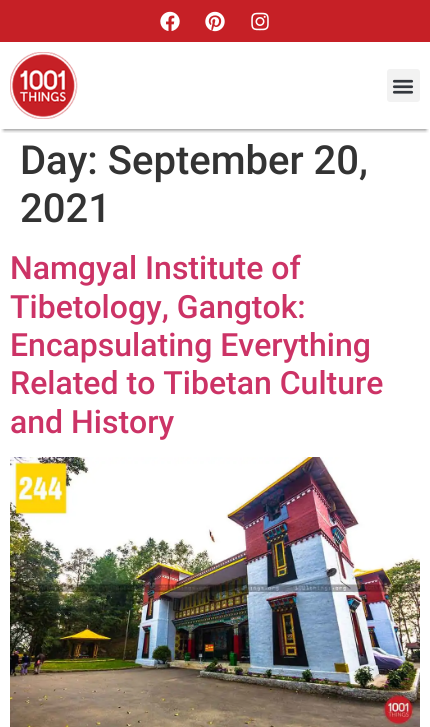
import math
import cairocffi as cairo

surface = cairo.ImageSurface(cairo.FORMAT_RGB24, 430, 727)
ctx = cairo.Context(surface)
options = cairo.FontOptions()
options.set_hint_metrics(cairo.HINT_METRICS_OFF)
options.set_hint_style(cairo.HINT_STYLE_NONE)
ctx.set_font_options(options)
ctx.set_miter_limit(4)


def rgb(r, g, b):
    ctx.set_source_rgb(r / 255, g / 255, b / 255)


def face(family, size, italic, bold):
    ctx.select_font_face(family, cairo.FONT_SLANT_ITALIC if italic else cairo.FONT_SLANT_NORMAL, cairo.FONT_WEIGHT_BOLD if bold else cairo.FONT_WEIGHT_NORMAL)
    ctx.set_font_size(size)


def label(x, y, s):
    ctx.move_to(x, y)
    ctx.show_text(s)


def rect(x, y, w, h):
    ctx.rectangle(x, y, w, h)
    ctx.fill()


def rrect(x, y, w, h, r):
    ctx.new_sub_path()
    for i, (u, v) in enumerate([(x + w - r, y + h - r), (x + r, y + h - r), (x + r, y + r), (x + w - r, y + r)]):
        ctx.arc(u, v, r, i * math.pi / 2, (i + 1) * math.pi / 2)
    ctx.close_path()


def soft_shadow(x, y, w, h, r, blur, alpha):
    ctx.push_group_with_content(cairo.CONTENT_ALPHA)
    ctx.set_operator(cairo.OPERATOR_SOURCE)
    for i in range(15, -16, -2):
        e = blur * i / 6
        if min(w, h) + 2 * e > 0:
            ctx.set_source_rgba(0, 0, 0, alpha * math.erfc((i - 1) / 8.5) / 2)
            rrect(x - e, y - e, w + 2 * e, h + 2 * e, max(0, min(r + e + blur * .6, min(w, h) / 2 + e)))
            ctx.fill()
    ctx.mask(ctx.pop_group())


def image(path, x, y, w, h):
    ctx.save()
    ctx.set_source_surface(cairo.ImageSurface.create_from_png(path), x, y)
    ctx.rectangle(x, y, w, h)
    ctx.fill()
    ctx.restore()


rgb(255, 255, 255)
ctx.paint()
rgb(198, 32, 38)
rect(0, 0, 430, 42)
image('image0.png', 160, 11, 20, 20)
image('image1.png', 205, 11, 20, 21)
image('image2.png', 251, 12, 18, 19)
ctx.save()
ctx.rectangle(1, 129, 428, 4)
ctx.clip()
rgb(0, 0, 0)
soft_shadow(4, 51, 422, 79, 0, 2, 0.5)
ctx.restore()
image('image3.png', 10, 52, 68, 67)
rgb(242, 242, 242)
rrect(387, 69, 33, 33, 3)
ctx.fill()
image('image4.png', 392, 79, 22, 15)
face('Roboto Medium', 40, 0, 0)
rgb(51, 51, 51)
label(20, 174, 'Day: September 20,')
label(20, 222, '2021')
face('Roboto Medium', 32, 0, 0)
rgb(204, 51, 102)
label(10, 279, 'Namgyal Institute of')
label(10, 318, 'Tibetology, Gangtok:')
label(10, 356, 'Encapsulating Everything')
label(10, 394, 'Related to Tibetan Culture')
label(10, 433, 'and History')
image('image5.png', 10, 457, 410, 270)
surface.write_to_png('render.png')
